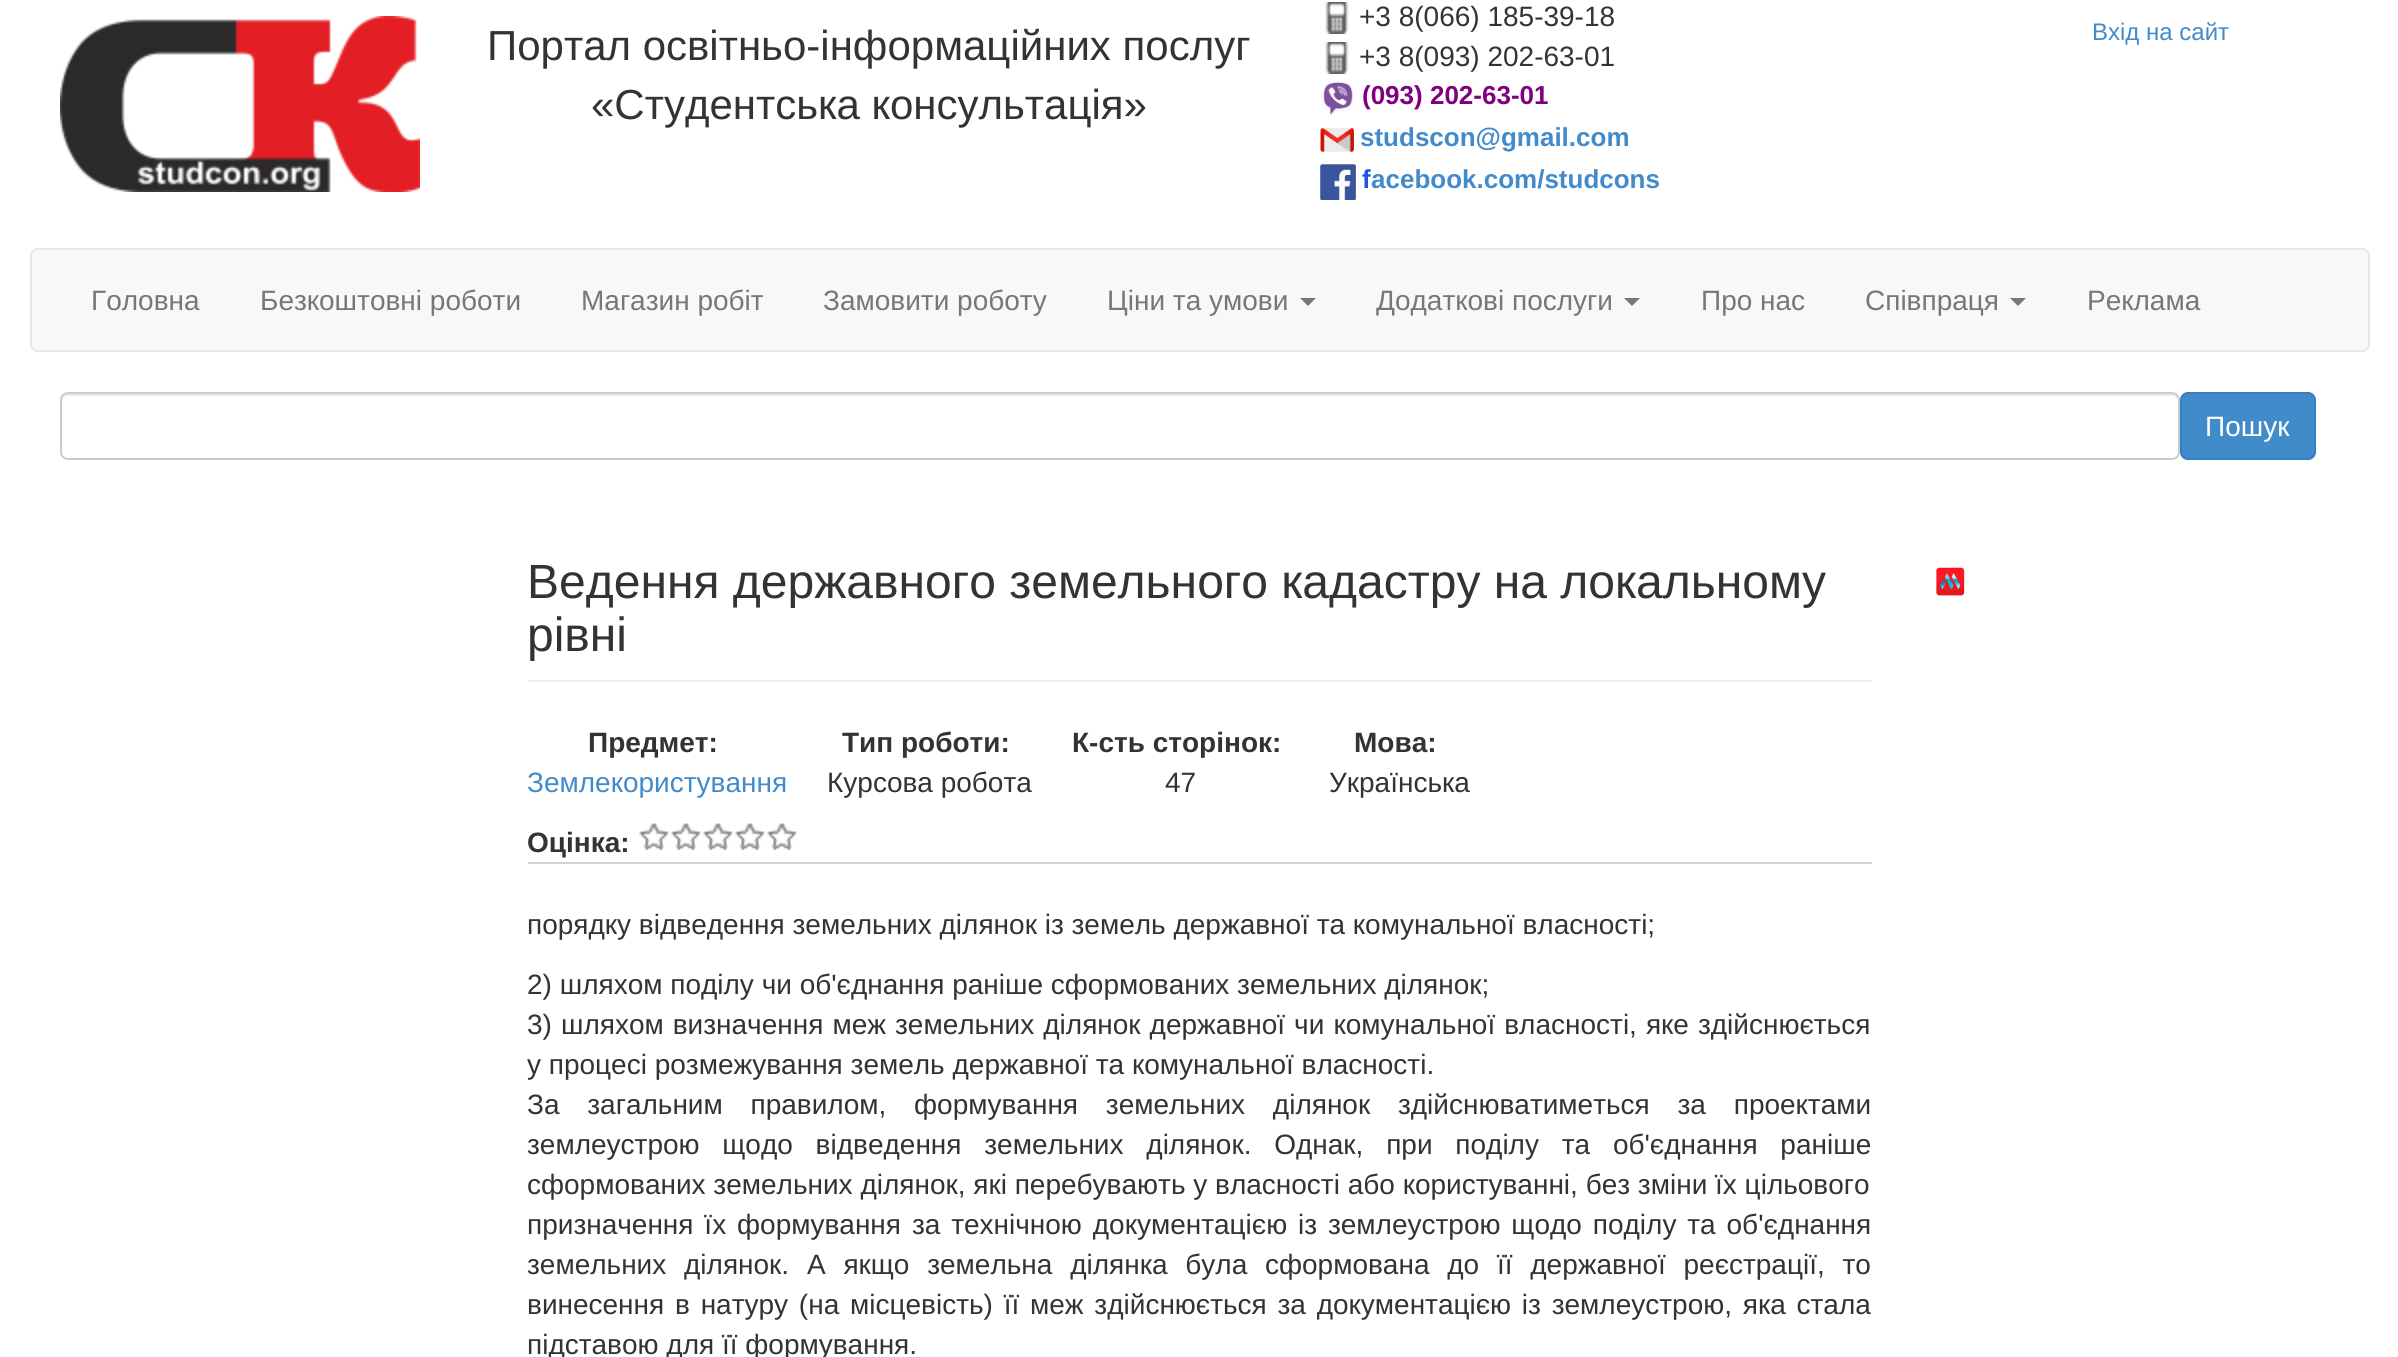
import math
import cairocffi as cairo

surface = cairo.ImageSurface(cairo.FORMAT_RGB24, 2398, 1357)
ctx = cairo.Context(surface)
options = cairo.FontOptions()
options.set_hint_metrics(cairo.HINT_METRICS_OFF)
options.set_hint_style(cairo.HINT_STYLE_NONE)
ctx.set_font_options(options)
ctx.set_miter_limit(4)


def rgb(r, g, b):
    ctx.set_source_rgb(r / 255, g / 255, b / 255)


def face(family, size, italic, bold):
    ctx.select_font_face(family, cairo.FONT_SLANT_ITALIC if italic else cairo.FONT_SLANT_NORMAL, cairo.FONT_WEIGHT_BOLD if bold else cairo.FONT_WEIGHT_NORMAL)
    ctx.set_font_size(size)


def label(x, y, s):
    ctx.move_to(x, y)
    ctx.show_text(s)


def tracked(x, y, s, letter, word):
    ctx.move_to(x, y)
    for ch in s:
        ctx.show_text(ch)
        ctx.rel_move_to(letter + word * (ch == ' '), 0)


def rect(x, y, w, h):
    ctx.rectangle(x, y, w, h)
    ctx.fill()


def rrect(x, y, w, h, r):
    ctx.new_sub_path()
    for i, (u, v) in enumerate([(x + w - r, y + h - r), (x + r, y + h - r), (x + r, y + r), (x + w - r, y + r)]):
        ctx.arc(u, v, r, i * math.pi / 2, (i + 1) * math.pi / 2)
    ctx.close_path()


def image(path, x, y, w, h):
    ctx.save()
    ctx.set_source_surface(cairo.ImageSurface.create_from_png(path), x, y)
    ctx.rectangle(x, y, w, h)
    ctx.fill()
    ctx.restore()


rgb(255, 255, 255)
ctx.paint()
image('image0.png', 60, 16, 360, 176)
face('Liberation Sans', 42, 0, 0)
rgb(51, 51, 51)
label(487, 60, 'Портал освітньо-інформаційних послуг')
label(591, 119, '«Студентська консультація»')
image('image1.png', 1325, 2, 24, 32)
face('Liberation Sans', 28, 0, 0)
label(1359, 26, '+3 8(066) 185-39-18')
image('image1.png', 1325, 42, 24, 32)
label(1359, 66, '+3 8(093) 202-63-01')
image('image2.png', 1321, 82, 33, 34)
face('Liberation Sans', 26, 0, 1)
rgb(128, 0, 128)
label(1362, 104, '(093) 202-63-01')
image('image3.png', 1320, 128, 34, 24)
rgb(66, 139, 202)
label(1360, 146, 'studscon@gmail.com')
image('image4.png', 1320, 164, 36, 36)
rgb(25, 86, 229)
label(1362, 188, 'f')
rgb(66, 139, 202)
label(1371, 188, 'acebook.com/studcons')
face('Liberation Sans', 24, 0, 0)
label(2092, 40, 'Вхід на сайт')
rgb(248, 248, 248)
rrect(31, 249, 2338, 102, 7)
ctx.fill_preserve()
rgb(231, 231, 231)
ctx.stroke()
face('Liberation Sans', 28, 0, 0)
rgb(119, 119, 119)
label(91, 310, 'Головна')
label(260, 310, 'Безкоштовні роботи')
label(581, 310, 'Магазин робіт')
label(823, 310, 'Замовити роботу')
label(1107, 310, 'Ціни та умови')
ctx.new_path()
ctx.move_to(1300, 298)
ctx.line_to(1316, 298)
ctx.line_to(1308, 306)
ctx.close_path()
ctx.fill()
label(1376, 310, 'Додаткові послуги')
ctx.new_path()
ctx.move_to(1624, 298)
ctx.line_to(1640, 298)
ctx.line_to(1632, 306)
ctx.close_path()
ctx.fill()
label(1701, 310, 'Про нас')
label(1865, 310, 'Співпраця')
ctx.new_path()
ctx.move_to(2010, 298)
ctx.line_to(2026, 298)
ctx.line_to(2018, 306)
ctx.close_path()
ctx.fill()
label(2087, 310, 'Реклама')
rgb(236, 236, 236)
ctx.new_path()
ctx.move_to(68, 396)
ctx.line_to(2172, 396)
ctx.curve_to(2175, 396, 2178, 399, 2178, 402)
ctx.curve_to(2178, 398, 2177, 394, 2172, 394)
ctx.line_to(68, 394)
ctx.curve_to(63, 394, 62, 398, 62, 402)
ctx.curve_to(62, 399, 65, 396, 68, 396)
ctx.close_path()
ctx.fill()
rrect(61, 393, 2118, 66, 7)
rgb(204, 204, 204)
ctx.stroke()
rgb(66, 139, 202)
rrect(2181, 393, 134, 66, 7)
ctx.fill_preserve()
rgb(53, 126, 189)
ctx.stroke()
rgb(255, 255, 255)
label(2205, 436, 'Пошук')
rgb(238, 238, 238)
rect(528, 680, 1344, 2)
face('Liberation Sans', 48, 0, 0)
rgb(51, 51, 51)
label(527, 598, 'Ведення державного земельного кадастру на локальному')
label(527, 651, 'рівні')
face('Liberation Sans', 28, 0, 1)
label(588, 752, 'Предмет:')
face('Liberation Sans', 28, 0, 0)
rgb(66, 139, 202)
label(527, 792, 'Землекористування')
face('Liberation Sans', 28, 0, 1)
rgb(51, 51, 51)
label(842, 752, 'Тип роботи:')
face('Liberation Sans', 28, 0, 0)
label(827, 792, 'Курсова робота')
face('Liberation Sans', 28, 0, 1)
label(1072, 752, 'К-сть сторінок:')
face('Liberation Sans', 28, 0, 0)
label(1165, 792, '47')
face('Liberation Sans', 28, 0, 1)
label(1354, 752, 'Мова:')
face('Liberation Sans', 28, 0, 0)
label(1329, 792, 'Українська')
rgb(211, 209, 209)
rect(528, 862, 1344, 2)
face('Liberation Sans', 28, 0, 1)
rgb(51, 51, 51)
label(527, 852, 'Оцінка:')
image('image5.png', 639, 823, 30, 27)
image('image6.png', 639, 823, 30, 27)
image('image5.png', 671, 823, 30, 27)
image('image6.png', 671, 823, 30, 27)
image('image5.png', 703, 823, 30, 27)
image('image6.png', 703, 823, 30, 27)
image('image5.png', 735, 823, 30, 27)
image('image6.png', 735, 823, 30, 27)
image('image5.png', 767, 823, 30, 27)
image('image6.png', 767, 823, 30, 27)
face('Liberation Sans', 28, 0, 0)
label(527, 934, 'порядку відведення земельних ділянок із земель державної та комунальної власності;')
label(527, 994, '2) шляхом поділу чи об\'єднання раніше сформованих земельних ділянок;')
tracked(527, 1034, '3) шляхом визначення меж земельних ділянок державної чи комунальної власності, яке здійснюється', 0, 1.25)
label(527, 1074, 'у процесі розмежування земель державної та комунальної власності.')
tracked(527, 1114, 'За загальним правилом, формування земельних ділянок здійснюватиметься за проектами', 0, 20)
tracked(527, 1154, 'землеустрою щодо відведення земельних ділянок. Однак, при поділу та об\'єднання раніше', 0, 15)
label(527, 1194, 'сформованих земельних ділянок, які перебувають у власності або користуванні, без зміни їх цільового')
tracked(527, 1234, 'призначення їх формування за технічною документацією із землеустрою щодо поділу та об\'єднання', 0, 3.1)
tracked(527, 1274, 'земельних ділянок. А якщо земельна ділянка була сформована до її державної реєстрації, то', 0, 10)
tracked(527, 1314, 'винесення в натуру (на місцевість) її меж здійснюється за документацією із землеустрою, яка стала', 0, 3)
label(527, 1354, 'підставою для її формування.')
image('image7.png', 1936, 567, 29, 29)
surface.write_to_png('render.png')
